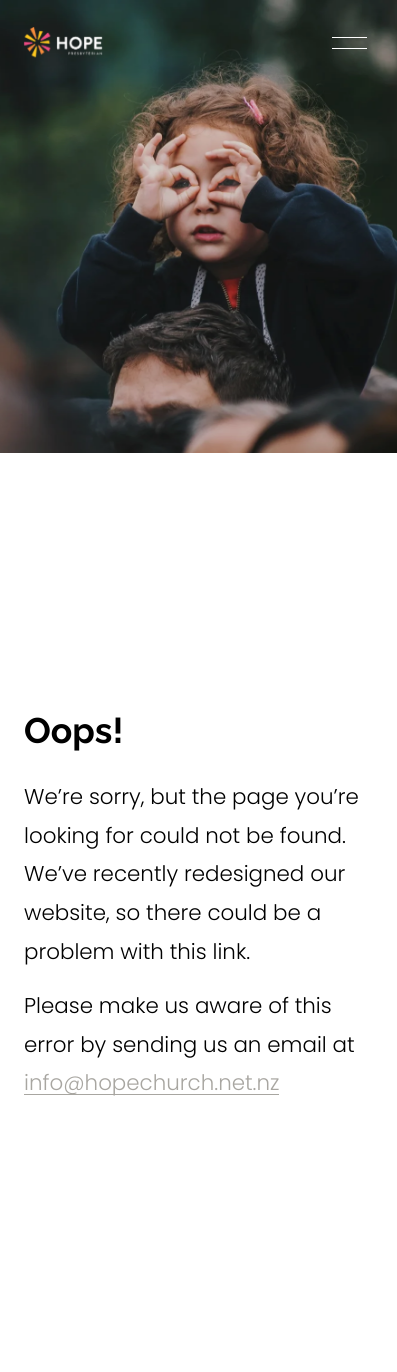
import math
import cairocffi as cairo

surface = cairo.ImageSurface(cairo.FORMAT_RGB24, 397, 1372)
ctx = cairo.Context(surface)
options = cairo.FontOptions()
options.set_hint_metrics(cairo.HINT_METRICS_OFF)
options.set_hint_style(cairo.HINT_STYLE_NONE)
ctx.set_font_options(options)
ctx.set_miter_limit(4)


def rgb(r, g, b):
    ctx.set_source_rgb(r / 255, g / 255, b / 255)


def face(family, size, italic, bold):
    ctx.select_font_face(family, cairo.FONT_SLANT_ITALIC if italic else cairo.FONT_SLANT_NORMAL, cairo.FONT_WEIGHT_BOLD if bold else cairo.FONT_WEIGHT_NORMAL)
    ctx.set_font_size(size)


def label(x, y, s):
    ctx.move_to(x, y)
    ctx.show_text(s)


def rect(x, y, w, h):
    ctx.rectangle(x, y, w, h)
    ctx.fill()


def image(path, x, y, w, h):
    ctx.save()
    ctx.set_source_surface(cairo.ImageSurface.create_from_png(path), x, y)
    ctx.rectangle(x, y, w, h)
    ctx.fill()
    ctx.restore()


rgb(255, 255, 255)
ctx.paint()
image('image1.png', 0, 0, 397, 453)
image('image0.png', 23, 27, 80, 31)
rgb(255, 255, 255)
rect(332, 37, 35, 1)
rect(332, 48, 35, 1)
face('Raleway', 35.5, 0, 1)
rgb(0, 0, 0)
label(24, 743, 'Oops!')
face('Poppins Light', 21.4, 0, 0)
label(24, 804, 'We’re sorry, but the page you’re')
label(24, 843, 'looking for could not be found.')
label(24, 881, 'We’ve recently redesigned our')
label(24, 920, 'website, so there could be a')
label(24, 959, 'problem with this link.')
label(24, 1013, 'Please make us aware of this')
label(24, 1052, 'error by sending us an email at')
rgb(168, 166, 161)
rect(24, 1094, 255, 1)
label(24, 1090, 'info@hopechurch.net.nz')
surface.write_to_png('render.png')
